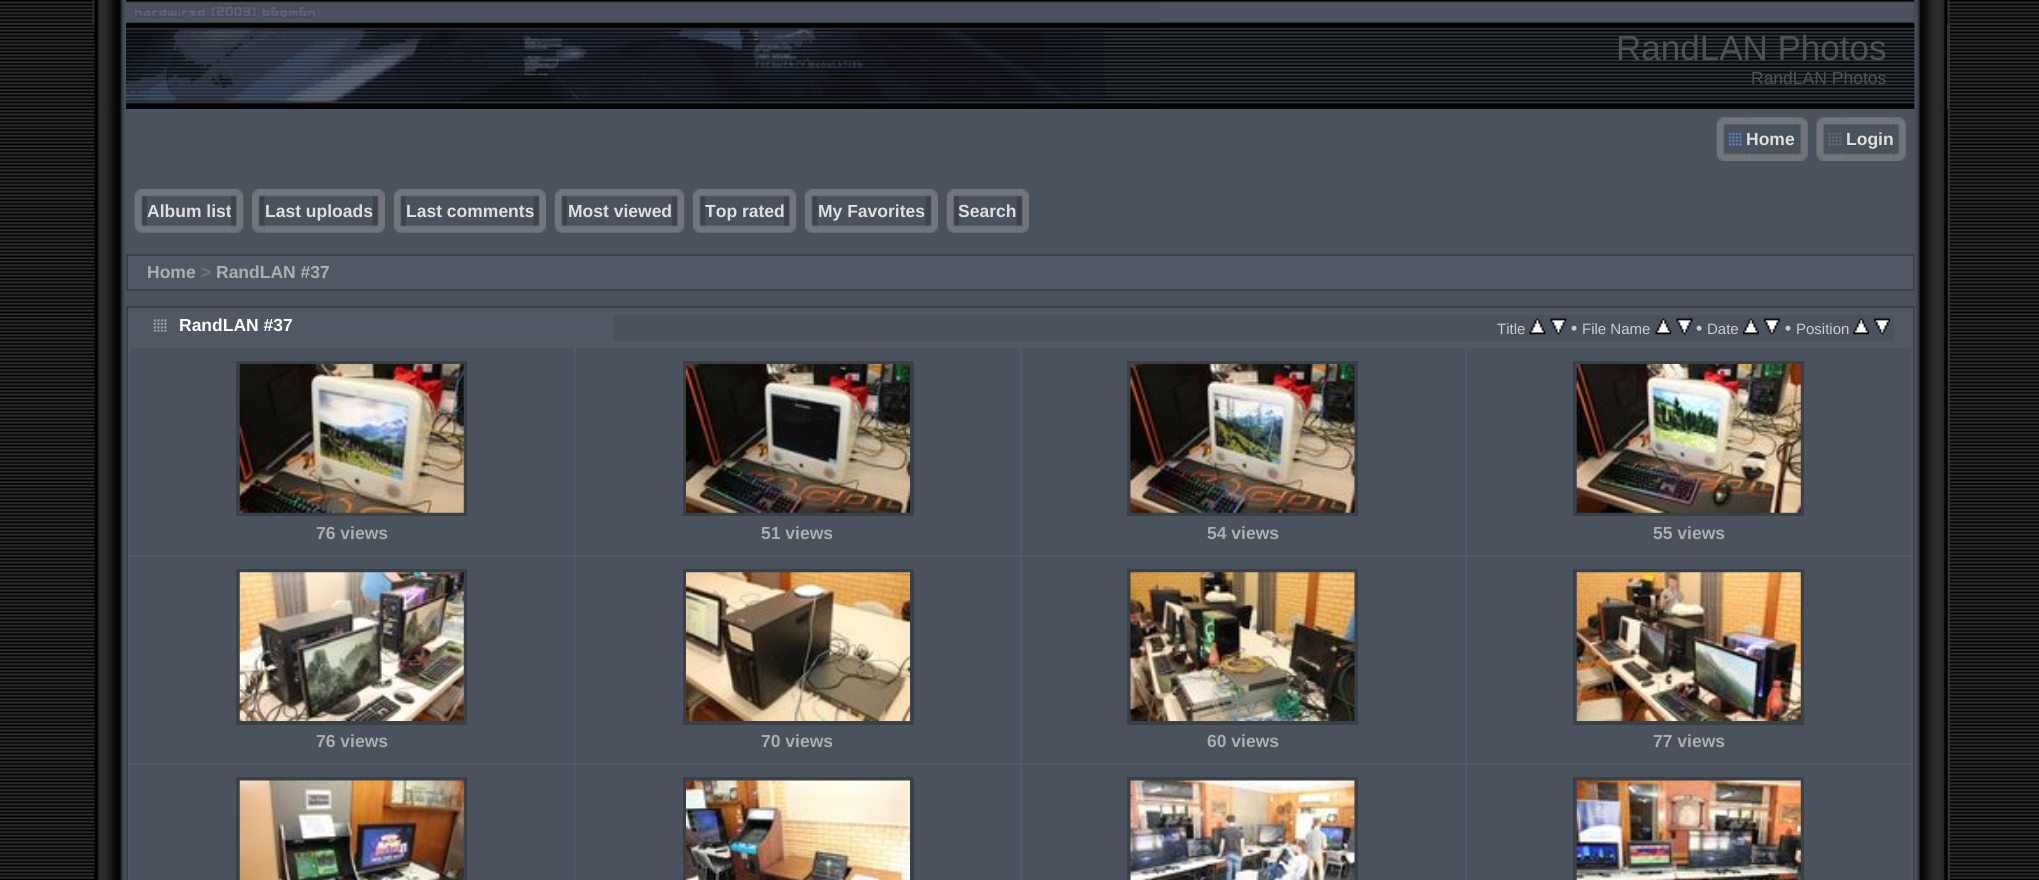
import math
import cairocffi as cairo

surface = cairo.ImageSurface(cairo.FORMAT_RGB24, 2039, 880)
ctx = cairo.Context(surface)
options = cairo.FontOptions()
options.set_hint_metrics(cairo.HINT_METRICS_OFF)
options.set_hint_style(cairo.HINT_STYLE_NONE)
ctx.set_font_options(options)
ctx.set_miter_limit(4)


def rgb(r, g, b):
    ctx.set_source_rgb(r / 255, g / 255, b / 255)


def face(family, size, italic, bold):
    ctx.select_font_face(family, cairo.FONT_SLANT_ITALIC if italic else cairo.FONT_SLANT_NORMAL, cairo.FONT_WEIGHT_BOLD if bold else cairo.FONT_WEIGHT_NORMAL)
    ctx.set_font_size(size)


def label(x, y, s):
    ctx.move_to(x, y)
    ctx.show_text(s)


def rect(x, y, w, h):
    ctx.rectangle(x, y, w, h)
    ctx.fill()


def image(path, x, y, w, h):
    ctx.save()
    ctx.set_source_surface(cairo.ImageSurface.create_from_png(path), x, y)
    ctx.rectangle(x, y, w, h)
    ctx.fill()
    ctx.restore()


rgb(0, 0, 0)
ctx.paint()
image('image0.png', 0, 0, 2039, 879)
image('image2.png', 94, 0, 32, 109)
image('image1.png', 0, 0, 95, 25)
image('image3.png', 94, 0, 1, 25)
image('image4.png', 126, 0, 1789, 109)
image('image5.png', 126, 2, 1034, 107)
face('Liberation Sans', 35, 0, 0)
rgb(76, 81, 87)
label(1616, 60, 'RandLAN Photos')
face('Liberation Sans', 17.5, 0, 0)
label(1751, 84, 'RandLAN Photos')
image('image6.png', 1914, 0, 33, 109)
rgb(51, 51, 51)
rect(1947, 0, 3, 880)
image('image7.png', 1914, 0, 34, 25)
image('image8.png', 1947, 0, 92, 25)
image('image9.png', 94, 108, 32, 772)
rgb(73, 82, 93)
rect(126, 109, 1789, 197)
image('image11.png', 1746, 117, 50, 44)
image('image10.png', 1716, 117, 31, 44)
face('Liberation Sans', 17.5, 0, 1)
rgb(223, 223, 223)
label(1746, 145, 'Home')
image('image12.png', 1795, 117, 13, 44)
image('image13.png', 1816, 117, 30, 44)
image('image14.png', 1846, 117, 48, 44)
label(1846, 145, 'Login')
image('image12.png', 1893, 117, 13, 44)
image('image15.png', 134, 189, 13, 44)
image('image16.png', 147, 189, 84, 44)
label(147, 217, 'Album list')
image('image17.png', 231, 189, 13, 44)
image('image19.png', 264, 189, 109, 44)
image('image18.png', 252, 189, 13, 44)
label(265, 217, 'Last uploads')
image('image20.png', 372, 189, 13, 44)
image('image15.png', 393, 189, 13, 44)
image('image21.png', 406, 189, 128, 44)
label(406, 217, 'Last comments')
image('image22.png', 533, 189, 13, 44)
image('image15.png', 554, 189, 13, 44)
image('image23.png', 567, 189, 105, 44)
label(568, 217, 'Most viewed')
image('image17.png', 672, 189, 13, 44)
image('image24.png', 705, 189, 79, 44)
image('image18.png', 693, 189, 13, 44)
label(705, 217, 'Top rated')
image('image17.png', 784, 189, 13, 44)
image('image19.png', 817, 189, 109, 44)
image('image25.png', 805, 189, 13, 44)
label(818, 217, 'My Favorites')
image('image26.png', 925, 189, 13, 44)
image('image15.png', 946, 189, 13, 44)
image('image27.png', 959, 189, 58, 44)
label(958, 217, 'Search')
image('image26.png', 1016, 189, 13, 44)
rgb(79, 88, 100)
ctx.rectangle(127, 255, 1787, 35)
ctx.fill_preserve()
rgb(57, 64, 73)
ctx.stroke()
rgb(174, 174, 174)
label(147, 278, 'Home')
rgb(106, 119, 134)
label(201, 278, '>')
rgb(174, 174, 174)
label(216, 278, 'RandLAN #37')
rgb(79, 88, 100)
ctx.rectangle(127, 307, 1787, 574)
ctx.fill_preserve()
rgb(57, 64, 73)
ctx.stroke()
image('image28.png', 153, 319, 14, 13)
rgb(255, 255, 255)
label(179, 331, 'RandLAN #37')
rgb(73, 82, 93)
rect(613, 315, 1281, 26)
face('Liberation Sans', 15, 0, 0)
rgb(204, 204, 204)
label(1497, 334, 'Title')
image('image29.png', 1529, 318, 17, 17)
image('image30.png', 1550, 318, 17, 17)
face('Liberation Sans', 17.5, 0, 1)
label(1571, 334, '•')
face('Liberation Sans', 15, 0, 0)
label(1582, 334, 'File Name')
image('image31.png', 1655, 318, 17, 17)
image('image32.png', 1676, 318, 17, 17)
face('Liberation Sans', 17.5, 0, 1)
label(1696, 334, '•')
face('Liberation Sans', 15, 0, 0)
label(1707, 334, 'Date')
image('image33.png', 1743, 318, 16, 17)
image('image34.png', 1764, 318, 16, 17)
face('Liberation Sans', 17.5, 0, 1)
label(1785, 334, '•')
face('Liberation Sans', 15, 0, 0)
label(1796, 334, 'Position')
image('image35.png', 1853, 318, 16, 17)
image('image36.png', 1874, 318, 16, 17)
rgb(73, 82, 93)
rect(130, 348, 444, 207)
ctx.rectangle(238, 363, 227, 151)
rgb(57, 64, 72)
ctx.set_line_width(4)
ctx.stroke()
image('image37.png', 239, 364, 225, 149)
face('Liberation Sans', 17.5, 0, 1)
rgb(174, 174, 174)
label(316, 539, '76 views')
rgb(73, 82, 93)
rect(576, 348, 444, 207)
ctx.rectangle(685, 363, 227, 151)
rgb(57, 64, 72)
ctx.stroke()
image('image38.png', 686, 364, 224, 149)
rgb(174, 174, 174)
label(761, 539, '51 views')
rgb(73, 82, 93)
rect(1022, 348, 443, 207)
ctx.rectangle(1129, 363, 227, 151)
rgb(57, 64, 72)
ctx.stroke()
image('image39.png', 1130, 364, 225, 149)
rgb(174, 174, 174)
label(1207, 539, '54 views')
rgb(73, 82, 93)
rect(1467, 348, 444, 207)
ctx.rectangle(1575, 363, 227, 151)
rgb(57, 64, 72)
ctx.stroke()
image('image40.png', 1576, 364, 225, 149)
rgb(174, 174, 174)
label(1653, 539, '55 views')
rgb(73, 82, 93)
rect(130, 557, 444, 206)
ctx.rectangle(238, 571, 227, 152)
rgb(57, 64, 72)
ctx.stroke()
image('image41.png', 239, 572, 225, 149)
rgb(174, 174, 174)
label(316, 747, '76 views')
rgb(73, 82, 93)
rect(576, 557, 444, 206)
ctx.rectangle(685, 571, 227, 152)
rgb(57, 64, 72)
ctx.stroke()
image('image42.png', 686, 572, 224, 149)
rgb(174, 174, 174)
label(761, 747, '70 views')
rgb(73, 82, 93)
rect(1022, 557, 443, 206)
ctx.rectangle(1129, 571, 227, 152)
rgb(57, 64, 72)
ctx.stroke()
image('image43.png', 1130, 572, 225, 149)
rgb(174, 174, 174)
label(1207, 747, '60 views')
rgb(73, 82, 93)
rect(1467, 557, 444, 206)
ctx.rectangle(1575, 571, 227, 152)
rgb(57, 64, 72)
ctx.stroke()
image('image44.png', 1576, 572, 225, 149)
rgb(174, 174, 174)
label(1653, 747, '77 views')
rgb(73, 82, 93)
rect(130, 765, 444, 115)
ctx.rectangle(238, 779, 227, 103)
rgb(57, 64, 72)
ctx.stroke()
image('image45.png', 239, 780, 225, 100)
rgb(73, 82, 93)
rect(576, 765, 444, 115)
ctx.rectangle(685, 779, 227, 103)
rgb(57, 64, 72)
ctx.stroke()
image('image46.png', 686, 780, 224, 100)
rgb(73, 82, 93)
rect(1022, 765, 443, 115)
ctx.rectangle(1129, 779, 227, 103)
rgb(57, 64, 72)
ctx.stroke()
image('image47.png', 1130, 780, 225, 100)
rgb(73, 82, 93)
rect(1467, 765, 444, 115)
ctx.rectangle(1575, 779, 227, 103)
rgb(57, 64, 72)
ctx.stroke()
image('image48.png', 1576, 780, 225, 100)
image('image49.png', 1914, 108, 34, 772)
surface.write_to_png('render.png')
